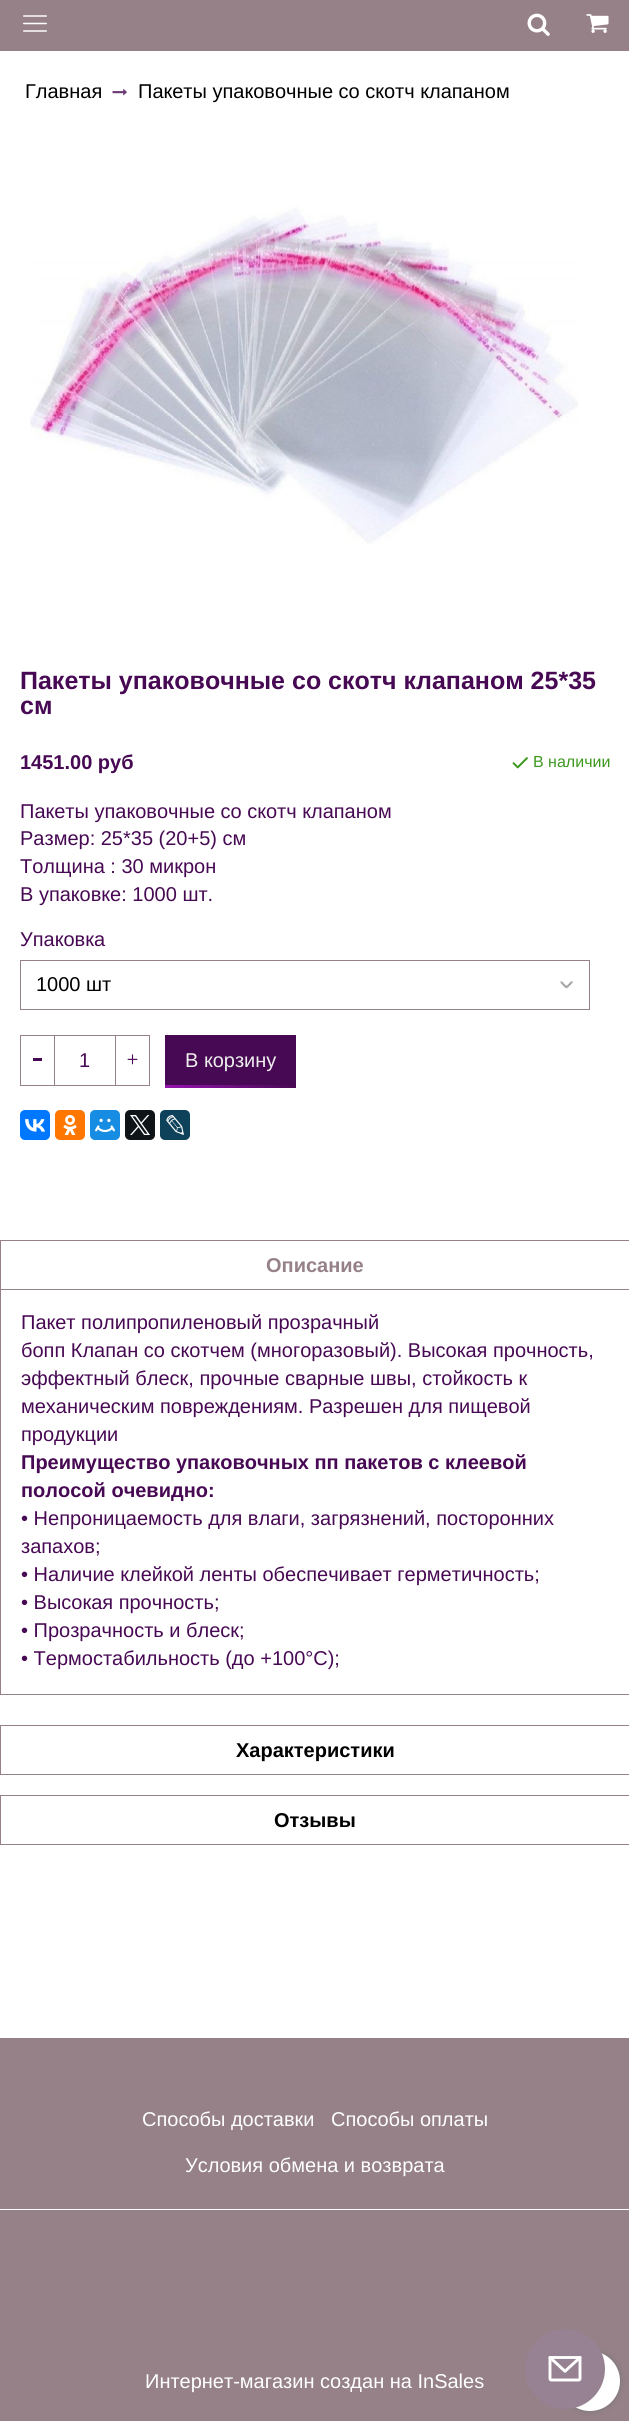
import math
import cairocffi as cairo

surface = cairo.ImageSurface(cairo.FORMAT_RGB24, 629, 2421)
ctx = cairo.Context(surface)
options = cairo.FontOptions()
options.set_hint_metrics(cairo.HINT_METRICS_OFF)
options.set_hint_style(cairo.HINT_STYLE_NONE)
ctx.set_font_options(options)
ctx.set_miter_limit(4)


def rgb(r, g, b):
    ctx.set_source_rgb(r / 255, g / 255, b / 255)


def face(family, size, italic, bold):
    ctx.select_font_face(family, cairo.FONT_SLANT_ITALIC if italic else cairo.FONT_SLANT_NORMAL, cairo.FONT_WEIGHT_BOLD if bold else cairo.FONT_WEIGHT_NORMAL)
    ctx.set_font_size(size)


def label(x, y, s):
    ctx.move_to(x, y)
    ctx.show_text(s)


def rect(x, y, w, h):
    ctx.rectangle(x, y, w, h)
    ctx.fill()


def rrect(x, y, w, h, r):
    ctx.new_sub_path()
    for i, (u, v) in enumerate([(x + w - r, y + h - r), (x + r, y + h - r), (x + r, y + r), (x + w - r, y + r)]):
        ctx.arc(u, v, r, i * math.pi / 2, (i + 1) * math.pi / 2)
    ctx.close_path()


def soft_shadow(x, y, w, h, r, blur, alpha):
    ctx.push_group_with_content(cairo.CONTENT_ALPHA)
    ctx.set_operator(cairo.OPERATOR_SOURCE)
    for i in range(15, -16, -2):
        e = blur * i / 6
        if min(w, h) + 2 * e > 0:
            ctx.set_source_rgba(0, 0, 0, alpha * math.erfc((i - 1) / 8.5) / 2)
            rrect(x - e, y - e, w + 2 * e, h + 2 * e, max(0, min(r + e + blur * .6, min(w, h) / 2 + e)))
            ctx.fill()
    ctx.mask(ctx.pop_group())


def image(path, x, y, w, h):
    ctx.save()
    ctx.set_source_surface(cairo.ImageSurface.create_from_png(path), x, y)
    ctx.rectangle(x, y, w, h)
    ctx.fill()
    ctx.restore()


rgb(255, 255, 255)
ctx.paint()
rgb(149, 129, 135)
rect(0, 0, 629, 51)
image('image0.png', 23, 15, 24, 17)
image('image1.png', 527, 13, 23, 23)
image('image2.png', 586, 14, 23, 19)
face('Liberation Sans', 20, 0, 0)
rgb(0, 0, 0)
label(25, 98, 'Главная')
image('image3.png', 112, 89, 15, 7)
label(138, 98, 'Пакеты упаковочные со скотч клапаном')
image('image4.png', 30, 205, 549, 339)
face('Liberation Sans', 25, 0, 1)
rgb(71, 9, 83)
label(20, 689, 'Пакеты упаковочные со скотч клапаном 25*35')
label(20, 714, 'см')
face('Liberation Sans', 20, 0, 1)
label(20, 769, '1451.00 руб')
image('image5.png', 512, 757, 16, 12)
face('Liberation Sans', 16, 0, 0)
rgb(60, 152, 29)
label(533, 767, 'В наличии')
face('Liberation Sans', 20, 0, 0)
rgb(71, 9, 83)
label(20, 818, 'Пакеты упаковочные со скотч клапаном')
label(20, 845, 'Размер: 25*35 (20+5) см')
label(20, 873, 'Толщина : 30 микрон')
label(20, 901, 'В упаковке: 1000 шт.')
label(20, 946, 'Упаковка')
image('image6.png', 560, 981, 13, 8)
ctx.rectangle(20.5, 960.5, 569, 49)
rgb(149, 129, 135)
ctx.set_line_width(1)
ctx.stroke()
rgb(0, 0, 0)
label(36, 991, '1000 шт')
ctx.rectangle(20.5, 1035.5, 34, 50)
rgb(149, 129, 135)
ctx.stroke()
rgb(71, 9, 83)
rect(33, 1058, 9, 3)
rgb(149, 129, 135)
rect(55, 1035, 60, 1)
rect(55, 1085, 60, 1)
rgb(71, 9, 83)
label(79, 1067, '1')
ctx.rectangle(115.5, 1035.5, 34, 50)
rgb(149, 129, 135)
ctx.stroke()
image('image7.png', 127, 1054, 11, 11)
rgb(71, 9, 83)
rect(165, 1035, 131, 50)
gradient = cairo.LinearGradient(207, 1118, 254, 1054)
gradient.add_color_stop_rgba(0, 0.588, 0.075, 0.686, 1)
gradient.add_color_stop_rgba(1, 0.278, 0.035, 0.325, 1)
ctx.set_source(gradient)
rect(165, 1085, 131, 3)
rgb(238, 238, 238)
label(185, 1067, 'В корзину')
rgb(0, 119, 255)
rrect(20, 1110, 30, 30, 5)
ctx.fill()
image('image8.png', 25, 1119, 20, 13)
rgb(255, 119, 0)
rrect(55, 1110, 30, 30, 5)
ctx.fill()
image('image9.png', 63, 1115, 14, 20)
rgb(22, 141, 226)
rrect(90, 1110, 30, 30, 5)
ctx.fill()
image('image10.png', 95, 1118, 20, 15)
rgb(15, 20, 25)
rrect(125, 1110, 30, 30, 5)
ctx.fill()
image('image11.png', 130, 1115, 20, 20)
rgb(13, 66, 90)
rrect(160, 1110, 30, 30, 5)
ctx.fill()
image('image12.png', 166, 1115, 18, 20)
ctx.rectangle(0.5, 1240.5, 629, 49)
rgb(149, 129, 135)
ctx.stroke()
face('Liberation Sans', 20, 0, 1)
label(266, 1272, 'Описание')
rect(0, 1694, 629, 1)
rect(0, 1290, 1, 405)
face('Liberation Sans', 20, 0, 0)
rgb(71, 9, 83)
label(21, 1329, 'Пакет полипропиленовый прозрачный')
label(21, 1357, 'бопп Клапан со скотчем (многоразовый). Высокая прочность,')
label(21, 1385, 'эффектный блеск, прочные сварные швы, стойкость к')
label(21, 1413, 'механическим повреждениям. Разрешен для пищевой')
label(21, 1441, 'продукции')
face('Liberation Sans', 20, 0, 1)
label(21, 1469, 'Преимущество упаковочных пп пакетов с клеевой')
label(21, 1497, 'полосой очевидно:')
face('Liberation Sans', 20, 0, 0)
label(21, 1525, '• Непроницаемость для влаги, загрязнений, посторонних')
label(21, 1553, 'запахов;')
label(21, 1581, '• Наличие клейкой ленты обеспечивает герметичность;')
label(21, 1609, '• Высокая прочность;')
label(21, 1637, '• Прозрачность и блеск;')
label(21, 1665, '• Термостабильность (до +100°С);')
ctx.rectangle(0.5, 1725.5, 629, 49)
rgb(149, 129, 135)
ctx.stroke()
face('Liberation Sans', 20, 0, 1)
rgb(0, 0, 0)
label(236, 1757, 'Характеристики')
ctx.rectangle(0.5, 1795.5, 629, 49)
rgb(149, 129, 135)
ctx.stroke()
rgb(0, 0, 0)
label(274, 1827, 'Отзывы')
rgb(149, 129, 135)
rect(0, 2038, 629, 383)
rgb(255, 255, 255)
rect(0, 2209, 629, 1)
face('Liberation Sans', 20, 0, 0)
label(142, 2126, 'Способы доставки')
label(331, 2126, 'Способы оплаты')
label(185, 2172, 'Условия обмена и возврата')
label(145, 2388, 'Интернет-магазин создан на InSales')
rgb(119, 119, 119)
soft_shadow(560, 2351, 60, 60, 30, 3, 1)
rgb(255, 255, 255)
ctx.arc(590, 2381, 30, 0, 2 * math.pi)
ctx.fill()
image('image13.png', 600, 2385, 2, 2)
rgb(150, 130, 147)
ctx.arc(565, 2369, 40, 0, 2 * math.pi)
ctx.fill()
image('image14.png', 548, 2356, 34, 26)
surface.write_to_png('render.png')
